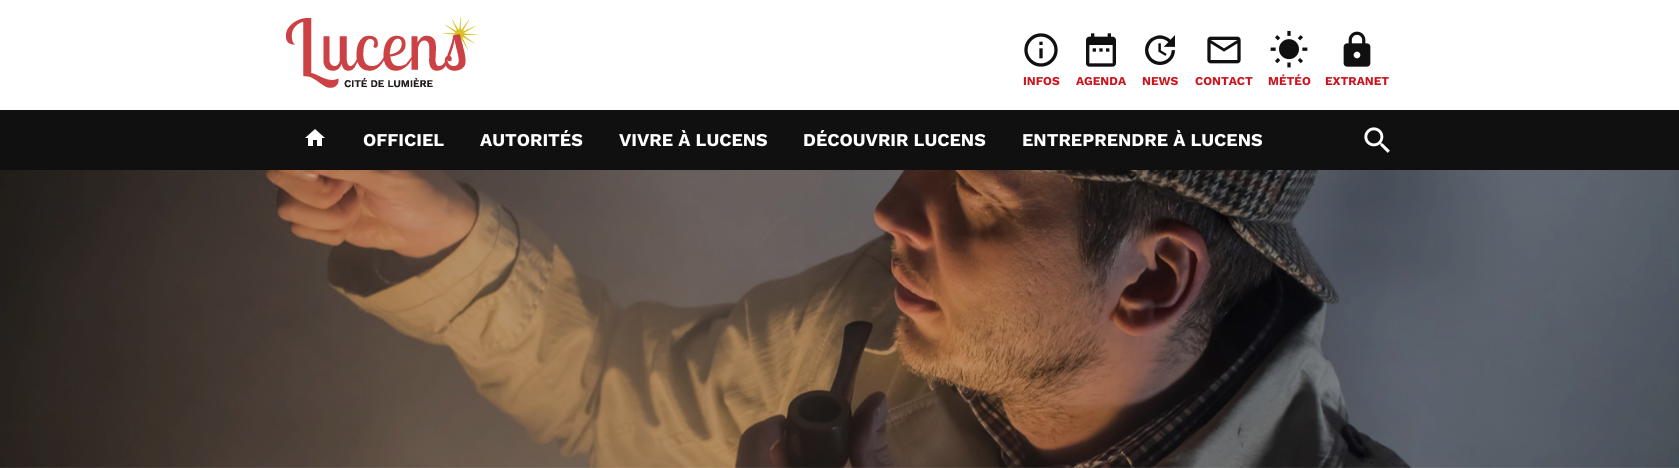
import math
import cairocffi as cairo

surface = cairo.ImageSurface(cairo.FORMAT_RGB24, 1679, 468)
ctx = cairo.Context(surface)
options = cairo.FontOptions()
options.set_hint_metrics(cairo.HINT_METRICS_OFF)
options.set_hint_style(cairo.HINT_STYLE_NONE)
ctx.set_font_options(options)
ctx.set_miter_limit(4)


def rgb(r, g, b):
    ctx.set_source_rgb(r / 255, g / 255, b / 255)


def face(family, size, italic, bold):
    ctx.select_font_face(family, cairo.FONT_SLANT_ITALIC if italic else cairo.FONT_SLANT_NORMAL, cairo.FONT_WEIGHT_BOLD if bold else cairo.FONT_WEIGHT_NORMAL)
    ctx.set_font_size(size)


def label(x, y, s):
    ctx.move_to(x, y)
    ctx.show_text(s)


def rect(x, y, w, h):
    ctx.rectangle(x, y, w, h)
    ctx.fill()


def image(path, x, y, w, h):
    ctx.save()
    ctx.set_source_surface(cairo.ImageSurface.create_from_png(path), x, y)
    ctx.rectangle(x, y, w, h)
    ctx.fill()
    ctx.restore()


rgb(255, 255, 255)
ctx.paint()
image('image0.png', 286, 17, 192, 71)
image('image1.png', 1024, 33, 34, 34)
face('Work Sans', 12, 0, 1)
rgb(204, 20, 31)
label(1023, 85, 'INFOS')
image('image2.png', 1086, 33, 30, 34)
label(1076, 85, 'AGENDA')
image('image3.png', 1145, 35, 30, 30)
label(1142, 85, 'NEWS')
image('image4.png', 1207, 36, 34, 28)
label(1195, 85, 'CONTACT')
image('image5.png', 1270, 30, 38, 38)
label(1268, 85, 'MÉTÉO')
image('image6.png', 1343, 31, 28, 36)
label(1325, 85, 'EXTRANET')
rgb(16, 16, 16)
rect(0, 110, 1679, 60)
image('image7.png', 305, 129, 20, 17)
face('Work Sans', 18, 0, 1)
rgb(255, 255, 255)
label(363, 146, 'OFFICIEL')
label(480, 146, 'AUTORITÉS')
label(619, 146, 'VIVRE À LUCENS')
label(803, 146, 'DÉCOUVRIR LUCENS')
label(1022, 146, 'ENTREPRENDRE À LUCENS')
image('image8.png', 1364, 127, 26, 26)
image('image9.png', 0, 170, 1679, 298)
surface.write_to_png('render.png')
